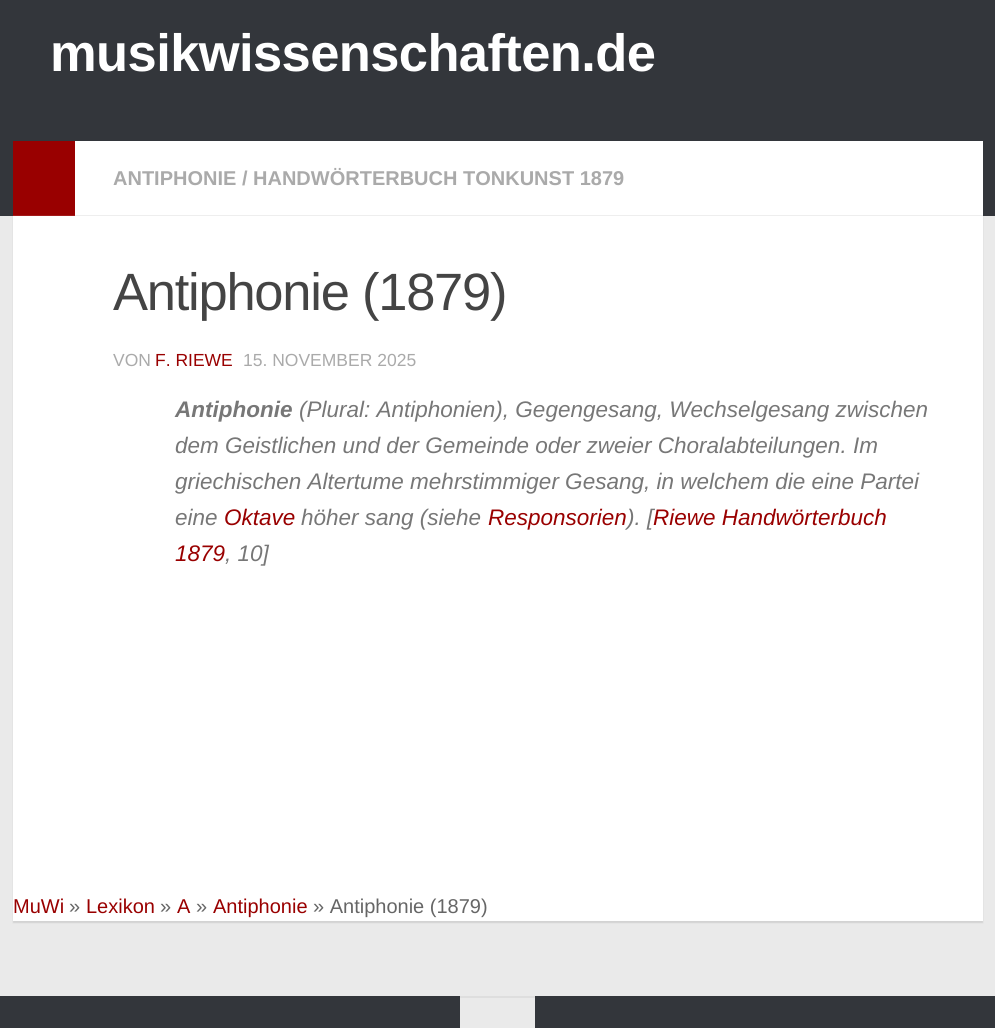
import math
import cairocffi as cairo

surface = cairo.ImageSurface(cairo.FORMAT_RGB24, 995, 1028)
ctx = cairo.Context(surface)
options = cairo.FontOptions()
options.set_hint_metrics(cairo.HINT_METRICS_OFF)
options.set_hint_style(cairo.HINT_STYLE_NONE)
ctx.set_font_options(options)
ctx.set_miter_limit(4)


def rgb(r, g, b):
    ctx.set_source_rgb(r / 255, g / 255, b / 255)


def face(family, size, italic, bold):
    ctx.select_font_face(family, cairo.FONT_SLANT_ITALIC if italic else cairo.FONT_SLANT_NORMAL, cairo.FONT_WEIGHT_BOLD if bold else cairo.FONT_WEIGHT_NORMAL)
    ctx.set_font_size(size)


def label(x, y, s):
    ctx.move_to(x, y)
    ctx.show_text(s)


def tracked(x, y, s, letter, word):
    ctx.move_to(x, y)
    for ch in s:
        ctx.show_text(ch)
        ctx.rel_move_to(letter + word * (ch == ' '), 0)


def rect(x, y, w, h):
    ctx.rectangle(x, y, w, h)
    ctx.fill()


def rrect(x, y, w, h, r):
    ctx.new_sub_path()
    for i, (u, v) in enumerate([(x + w - r, y + h - r), (x + r, y + h - r), (x + r, y + r), (x + w - r, y + r)]):
        ctx.arc(u, v, r, i * math.pi / 2, (i + 1) * math.pi / 2)
    ctx.close_path()


def soft_shadow(x, y, w, h, r, blur, alpha):
    ctx.push_group_with_content(cairo.CONTENT_ALPHA)
    ctx.set_operator(cairo.OPERATOR_SOURCE)
    for i in range(15, -16, -2):
        e = blur * i / 6
        if min(w, h) + 2 * e > 0:
            ctx.set_source_rgba(0, 0, 0, alpha * math.erfc((i - 1) / 8.5) / 2)
            rrect(x - e, y - e, w + 2 * e, h + 2 * e, max(0, min(r + e + blur * .6, min(w, h) / 2 + e)))
            ctx.fill()
    ctx.mask(ctx.pop_group())


rgb(234, 234, 234)
ctx.paint()
rgb(0, 0, 0)
soft_shadow(13, 143, 970, 780, 0, 0.5, 0.1)
rgb(51, 54, 59)
rect(0, 0, 995, 216)
face('Liberation Sans', 52.5, 0, 1)
rgb(255, 255, 255)
tracked(50, 71, 'musikwissenschaften.de', -0.6, 0)
rect(13, 891, 970, 30)
rect(13, 141, 970, 750)
rgb(153, 0, 0)
rect(13, 141, 62, 74)
rgb(163, 26, 26)
rect(13, 215, 62, 1)
rgb(238, 238, 238)
rect(75, 215, 908, 1)
face('Liberation Sans', 20, 0, 1)
rgb(170, 170, 170)
label(113, 185, 'ANTIPHONIE / HANDWÖRTERBUCH TONKUNST 1879')
face('Liberation Sans', 52.5, 0, 0)
rgb(68, 68, 68)
tracked(113, 310, 'Antiphonie (1879)', -1.25, 0)
face('Liberation Sans', 17.5, 0, 0)
rgb(170, 170, 170)
label(113, 366, 'VON')
rgb(153, 0, 0)
label(155, 366, 'F. RIEWE')
rgb(170, 170, 170)
label(243, 366, '15. NOVEMBER 2025')
face('Liberation Sans', 22.5, 1, 1)
rgb(119, 119, 119)
label(175, 417, 'Antiphonie')
face('Liberation Sans', 22.5, 1, 0)
label(299, 417, '(Plural: Antiphonien), Gegengesang, Wechselgesang zwischen')
label(175, 453, 'dem Geistlichen und der Gemeinde oder zweier Choralabteilungen. Im')
label(175, 489, 'griechischen Altertume mehrstimmiger Gesang, in welchem die eine Partei')
label(175, 525, 'eine')
rgb(153, 0, 0)
label(224, 525, 'Oktave')
rgb(119, 119, 119)
label(301, 525, 'höher sang (siehe')
rgb(153, 0, 0)
label(488, 525, 'Responsorien')
rgb(119, 119, 119)
label(627, 525, '). [')
rgb(153, 0, 0)
label(653, 525, 'Riewe Handwörterbuch')
label(175, 561, '1879')
rgb(119, 119, 119)
label(225, 561, ', 10]')
face('Liberation Sans', 20, 0, 0)
rgb(153, 0, 0)
label(13, 913, 'MuWi')
rgb(102, 102, 102)
label(69, 913, '»')
rgb(153, 0, 0)
label(86, 913, 'Lexikon')
rgb(102, 102, 102)
label(160, 913, '»')
rgb(153, 0, 0)
label(177, 913, 'A')
rgb(102, 102, 102)
label(196, 913, '»')
rgb(153, 0, 0)
label(213, 913, 'Antiphonie')
rgb(102, 102, 102)
label(313, 913, '» Antiphonie (1879)')
rgb(51, 54, 59)
rect(0, 996, 995, 32)
rgb(234, 234, 234)
rect(460, 998, 75, 30)
rgb(222, 222, 222)
rect(460, 996, 75, 2)
surface.write_to_png('render.png')
